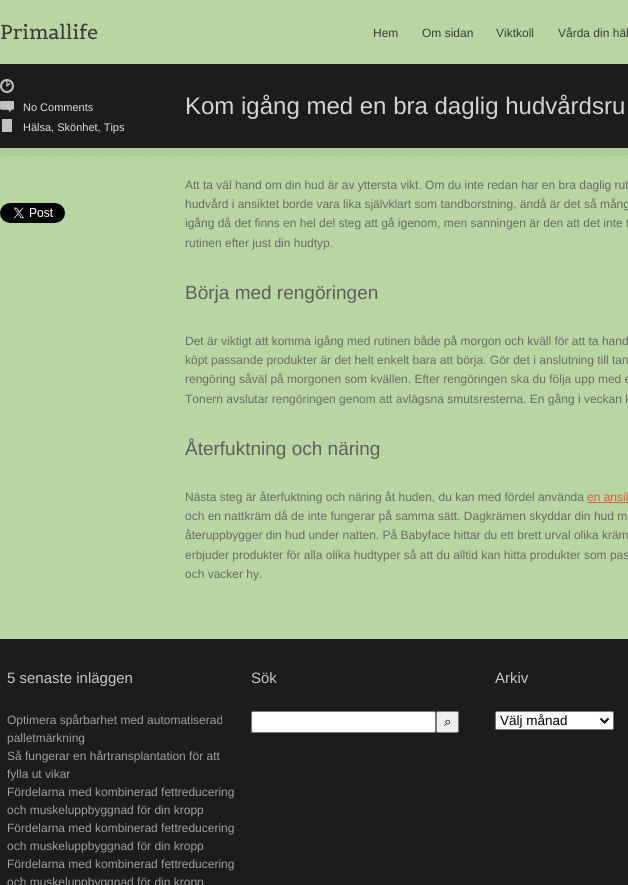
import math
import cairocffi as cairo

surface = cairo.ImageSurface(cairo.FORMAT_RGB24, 628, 885)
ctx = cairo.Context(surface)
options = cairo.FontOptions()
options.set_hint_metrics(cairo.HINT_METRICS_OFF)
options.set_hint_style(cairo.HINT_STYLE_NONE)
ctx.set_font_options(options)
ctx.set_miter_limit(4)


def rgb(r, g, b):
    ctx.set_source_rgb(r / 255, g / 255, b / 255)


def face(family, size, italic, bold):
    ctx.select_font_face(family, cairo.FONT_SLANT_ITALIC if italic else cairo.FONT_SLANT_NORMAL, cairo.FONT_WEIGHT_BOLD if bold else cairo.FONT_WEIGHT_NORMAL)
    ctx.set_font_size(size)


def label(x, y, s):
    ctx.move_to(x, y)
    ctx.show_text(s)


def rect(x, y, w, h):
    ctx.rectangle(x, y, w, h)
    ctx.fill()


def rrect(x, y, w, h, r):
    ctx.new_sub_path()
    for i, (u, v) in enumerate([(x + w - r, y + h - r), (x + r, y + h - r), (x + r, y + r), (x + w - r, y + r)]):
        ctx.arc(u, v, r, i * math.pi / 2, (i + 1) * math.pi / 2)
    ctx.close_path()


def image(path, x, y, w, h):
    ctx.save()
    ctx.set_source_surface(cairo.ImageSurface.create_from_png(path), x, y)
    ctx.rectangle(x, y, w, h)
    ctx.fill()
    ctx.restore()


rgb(183, 214, 162)
ctx.paint()
face('Belgrano', 20, 0, 0)
rgb(59, 59, 59)
label(0, 39, 'Primallife')
face('Liberation Sans', 12, 0, 0)
label(373, 37, 'Hem')
label(422, 37, 'Om sidan')
label(496, 37, 'Viktkoll')
label(558, 37, 'Vårda din häl')
rgb(28, 28, 28)
rect(0, 64, 628, 84)
image('image0.png', 0, 79, 14, 14)
image('image1.png', 0, 101, 14, 11)
face('Liberation Sans', 11, 0, 0)
rgb(221, 221, 221)
label(23, 111, 'No Comments')
rgb(193, 193, 193)
rect(2, 119, 10, 13)
rgb(221, 221, 221)
label(23, 131, 'Hälsa, Skönhet, Tips')
face('Liberation Sans', 24, 0, 0)
rgb(212, 212, 212)
label(185, 114, 'Kom igång med en bra daglig hudvårdsru')
image('image2.png', 0, 148, 628, 8)
image('image3.png', 0, 203, 65, 20)
face('Liberation Sans', 12, 0, 0)
rgb(106, 106, 106)
label(185, 189, 'Att ta väl hand om din hud är av yttersta vikt. Om du inte redan har en bra daglig rut')
label(185, 208, 'hudvård i ansiktet borde vara lika självklart som tandborstning, ändå är det så mång')
label(185, 227, 'igång då det finns en hel del steg att gå igenom, men sanningen är den att det inte t')
label(185, 247, 'rutinen efter just din hudtyp.')
face('Liberation Sans', 19, 0, 0)
rgb(94, 94, 94)
label(185, 299, 'Börja med rengöringen')
face('Liberation Sans', 12, 0, 0)
rgb(106, 106, 106)
label(185, 345, 'Det är viktigt att komma igång med rutinen både på morgon och kväll för att ta hand')
label(185, 364, 'köpt passande produkter är det helt enkelt bara att börja. Gör det i anslutning till tan')
label(185, 383, 'rengöring såväl på morgonen som kvällen. Efter rengöringen ska du följa upp med e')
label(185, 403, 'Tonern avslutar rengöringen genom att avlägsna smutsresterna. En gång i veckan k')
face('Liberation Sans', 19, 0, 0)
rgb(94, 94, 94)
label(185, 455, 'Återfuktning och näring')
face('Liberation Sans', 12, 0, 0)
rgb(106, 106, 106)
label(185, 501, 'Nästa steg är återfuktning och näring åt huden, du kan med fördel använda')
rgb(220, 92, 59)
label(587, 501, 'en ansik')
rect(587, 502, 41, 1)
rgb(106, 106, 106)
label(185, 520, 'och en nattkräm då de inte fungerar på samma sätt. Dagkrämen skyddar din hud m')
label(185, 539, 'återuppbygger din hud under natten. På Babyface hittar du ett brett urval olika kräm')
label(185, 559, 'erbjuder produkter för alla olika hudtyper så att du alltid kan hitta produkter som pas')
label(185, 578, 'och vacker hy.')
rgb(28, 28, 28)
rect(0, 639, 628, 246)
face('Liberation Sans', 15, 0, 0)
rgb(198, 198, 198)
label(7, 683, '5 senaste inläggen')
face('Liberation Sans', 12, 0, 0)
rgb(158, 158, 158)
label(7, 724, 'Optimera spårbarhet med automatiserad')
label(7, 742, 'palletmärkning')
label(7, 760, 'Så fungerar en hårtransplantation för att')
label(7, 778, 'fylla ut vikar')
label(7, 796, 'Fördelarna med kombinerad fettreducering')
label(7, 814, 'och muskeluppbyggnad för din kropp')
label(7, 832, 'Fördelarna med kombinerad fettreducering')
label(7, 850, 'och muskeluppbyggnad för din kropp')
label(7, 868, 'Fördelarna med kombinerad fettreducering')
label(7, 886, 'och muskeluppbyggnad för din kropp')
face('Liberation Sans', 15, 0, 0)
rgb(198, 198, 198)
label(251, 683, 'Sök')
rgb(255, 255, 255)
rrect(251.5, 711.5, 184, 21, 1.5)
ctx.fill_preserve()
rgb(118, 118, 118)
ctx.set_line_width(1)
ctx.stroke()
rgb(239, 239, 239)
rrect(436.5, 711.5, 22, 21, 1.5)
ctx.fill_preserve()
rgb(118, 118, 118)
ctx.stroke()
face('FreeSerif', 13.5, 0, 0)
rgb(0, 0, 0)
label(444, 726, '⌕')
face('Liberation Sans', 15, 0, 0)
rgb(198, 198, 198)
label(495, 683, 'Arkiv')
rgb(255, 255, 255)
rrect(495.5, 711.5, 118, 18, 1.5)
ctx.fill_preserve()
rgb(118, 118, 118)
ctx.stroke()
ctx.new_path()
ctx.move_to(600.5, 718.5)
ctx.line_to(604.5, 722.5)
ctx.line_to(608.5, 718.5)
rgb(0, 0, 0)
ctx.set_line_width(2)
ctx.stroke()
face('Liberation Sans', 13.5, 0, 0)
label(500, 725, 'Välj månad')
surface.write_to_png('render.png')
